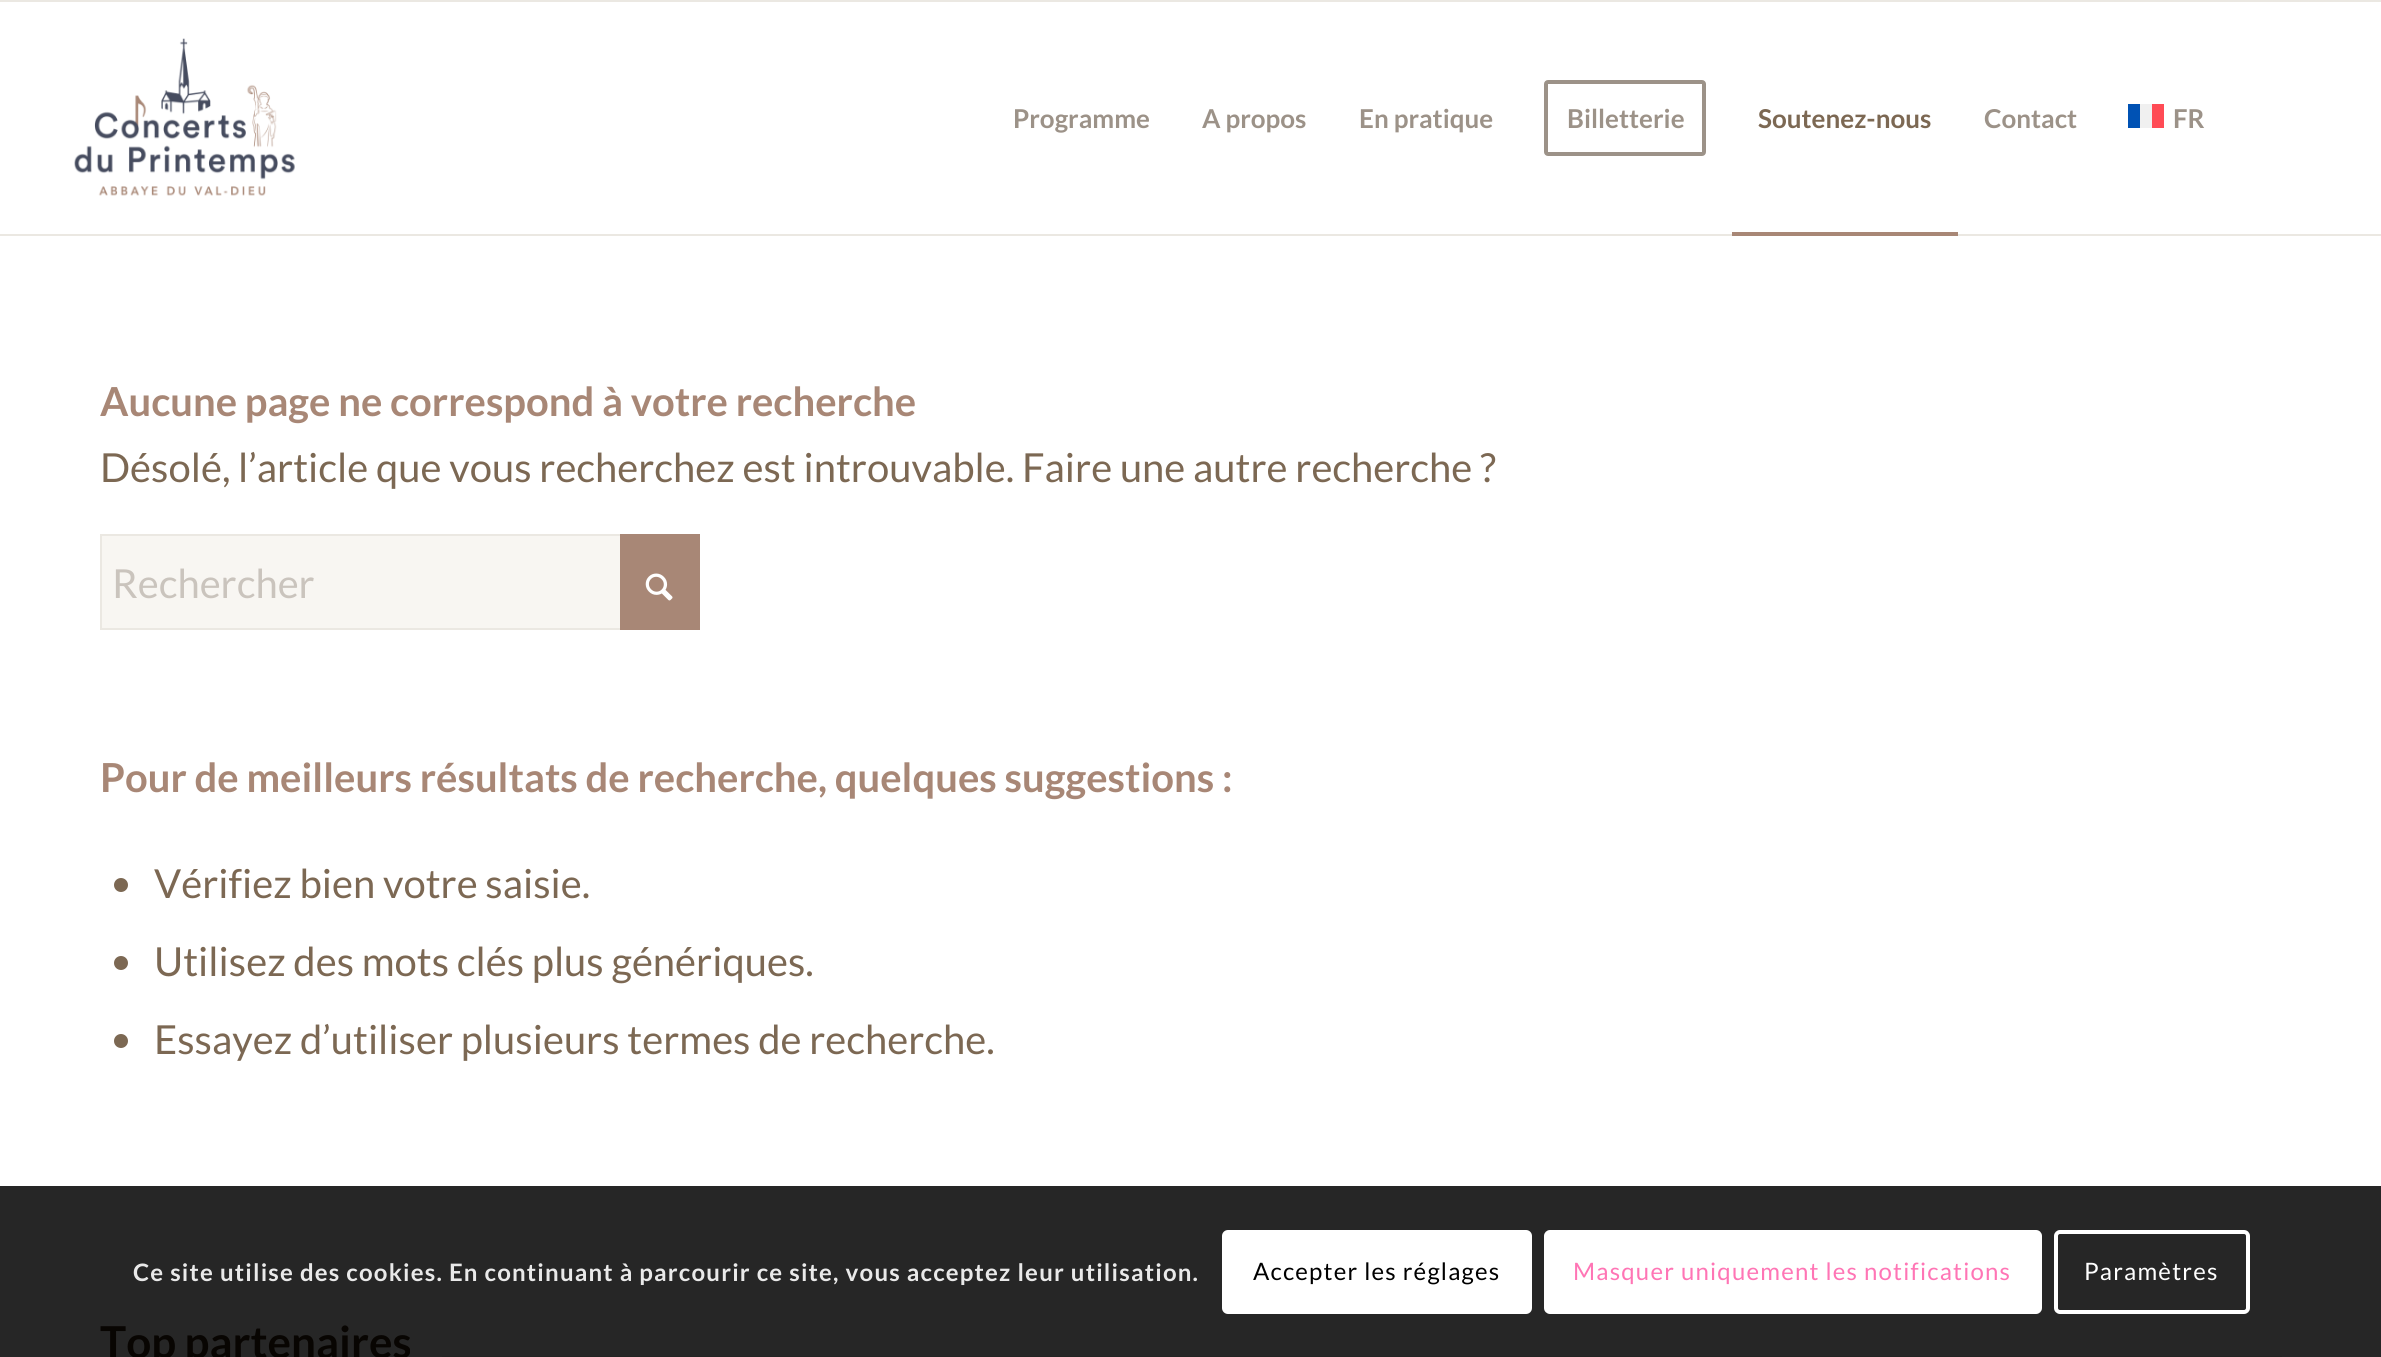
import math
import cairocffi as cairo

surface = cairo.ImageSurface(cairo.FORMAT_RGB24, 2381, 1357)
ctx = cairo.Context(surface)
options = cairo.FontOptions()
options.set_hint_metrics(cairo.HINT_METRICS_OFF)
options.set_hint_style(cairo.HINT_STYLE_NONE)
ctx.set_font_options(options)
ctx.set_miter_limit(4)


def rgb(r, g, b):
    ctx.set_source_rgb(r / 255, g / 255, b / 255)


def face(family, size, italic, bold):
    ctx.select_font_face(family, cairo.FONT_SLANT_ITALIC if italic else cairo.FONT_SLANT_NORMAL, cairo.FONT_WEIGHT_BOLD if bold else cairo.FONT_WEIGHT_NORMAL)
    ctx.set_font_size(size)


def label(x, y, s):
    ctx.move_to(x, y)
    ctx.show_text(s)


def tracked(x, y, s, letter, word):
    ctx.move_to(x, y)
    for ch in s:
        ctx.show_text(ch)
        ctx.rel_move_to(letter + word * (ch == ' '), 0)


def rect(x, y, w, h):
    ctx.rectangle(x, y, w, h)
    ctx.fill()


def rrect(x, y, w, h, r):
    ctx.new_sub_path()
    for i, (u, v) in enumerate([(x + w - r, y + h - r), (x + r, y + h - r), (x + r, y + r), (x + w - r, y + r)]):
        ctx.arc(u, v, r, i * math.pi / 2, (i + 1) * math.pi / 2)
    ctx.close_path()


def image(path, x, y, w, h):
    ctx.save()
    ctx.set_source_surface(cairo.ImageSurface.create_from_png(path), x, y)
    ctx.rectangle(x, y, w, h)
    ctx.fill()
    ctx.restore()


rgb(255, 255, 255)
ctx.paint()
rgb(38, 38, 38)
rect(0, 1186, 2381, 171)
rgb(235, 232, 226)
rect(0, 0, 2381, 2)
rect(0, 234, 2381, 2)
image('image0.png', 74, 38, 221, 158)
face('Lato', 26, 0, 1)
rgb(156, 146, 136)
label(1013, 128, 'Programme')
label(1202, 128, 'A propos')
label(1359, 128, 'En pratique')
rrect(1546, 82, 158, 72, 2)
ctx.set_line_width(4)
ctx.stroke()
label(1567, 128, 'Billetterie')
rgb(124, 104, 83)
label(1758, 128, 'Soutenez-nous')
rgb(168, 135, 118)
rect(1732, 232, 226, 4)
rgb(156, 146, 136)
label(1984, 128, 'Contact')
label(2173, 128, 'FR')
rgb(240, 240, 240)
rect(2140, 104, 12, 24)
rgb(255, 75, 85)
rect(2152, 104, 12, 24)
rgb(0, 82, 180)
rect(2128, 104, 12, 24)
face('Lato', 40, 0, 1)
rgb(168, 135, 118)
label(100, 416, 'Aucune page ne correspond à votre recherche')
face('Lato', 40, 0, 0)
rgb(124, 104, 83)
label(100, 482, 'Désolé, l’article que vous recherchez est introuvable. Faire une autre recherche ?')
rgb(248, 246, 242)
rect(102, 536, 518, 92)
ctx.rectangle(101, 535, 598, 94)
rgb(235, 232, 226)
ctx.set_line_width(2)
ctx.stroke()
rgb(202, 196, 189)
label(112, 598, 'Rechercher')
rgb(168, 135, 118)
rect(620, 534, 80, 96)
image('image1.png', 645, 573, 28, 28)
face('Lato', 40, 0, 1)
label(100, 792, 'Pour de meilleurs résultats de recherche, quelques suggestions :')
rgb(124, 104, 83)
ctx.new_path()
ctx.arc(121, 885, 7, 0, 2 * math.pi)
ctx.fill()
face('Lato', 40, 0, 0)
label(154, 898, 'Vérifiez bien votre saisie.')
ctx.new_path()
ctx.arc(121, 963, 7, 0, 2 * math.pi)
ctx.fill()
label(154, 976, 'Utilisez des mots clés plus génériques.')
ctx.new_path()
ctx.arc(121, 1041, 7, 0, 2 * math.pi)
ctx.fill()
label(154, 1054, 'Essayez d’utiliser plusieurs termes de recherche.')
face('Lato', 44, 0, 1)
rgb(8, 5, 2)
label(100, 1358, 'Top partenaires')
rgb(35, 35, 34)
rect(442, 1356, 1840, 1)
face('Lato', 24, 0, 1)
rgb(233, 233, 233)
tracked(133, 1281, 'Ce site utilise des cookies. En continuant à parcourir ce site, vous acceptez leur utilisation.', 1.2, 0)
rgb(255, 255, 255)
rrect(1222, 1230, 310, 84, 6)
ctx.fill()
face('Lato', 24, 0, 0)
rgb(0, 0, 0)
tracked(1253, 1280, 'Accepter les réglages', 1.2, 0)
rgb(255, 255, 255)
rrect(1546, 1232, 494, 80, 4)
ctx.fill_preserve()
ctx.set_line_width(4)
ctx.stroke()
rgb(255, 117, 181)
tracked(1573, 1280, 'Masquer uniquement les notifications', 1.2, 0)
rrect(2056, 1232, 192, 80, 4)
rgb(255, 255, 255)
ctx.stroke()
tracked(2084, 1280, 'Paramètres', 1.2, 0)
surface.write_to_png('render.png')
